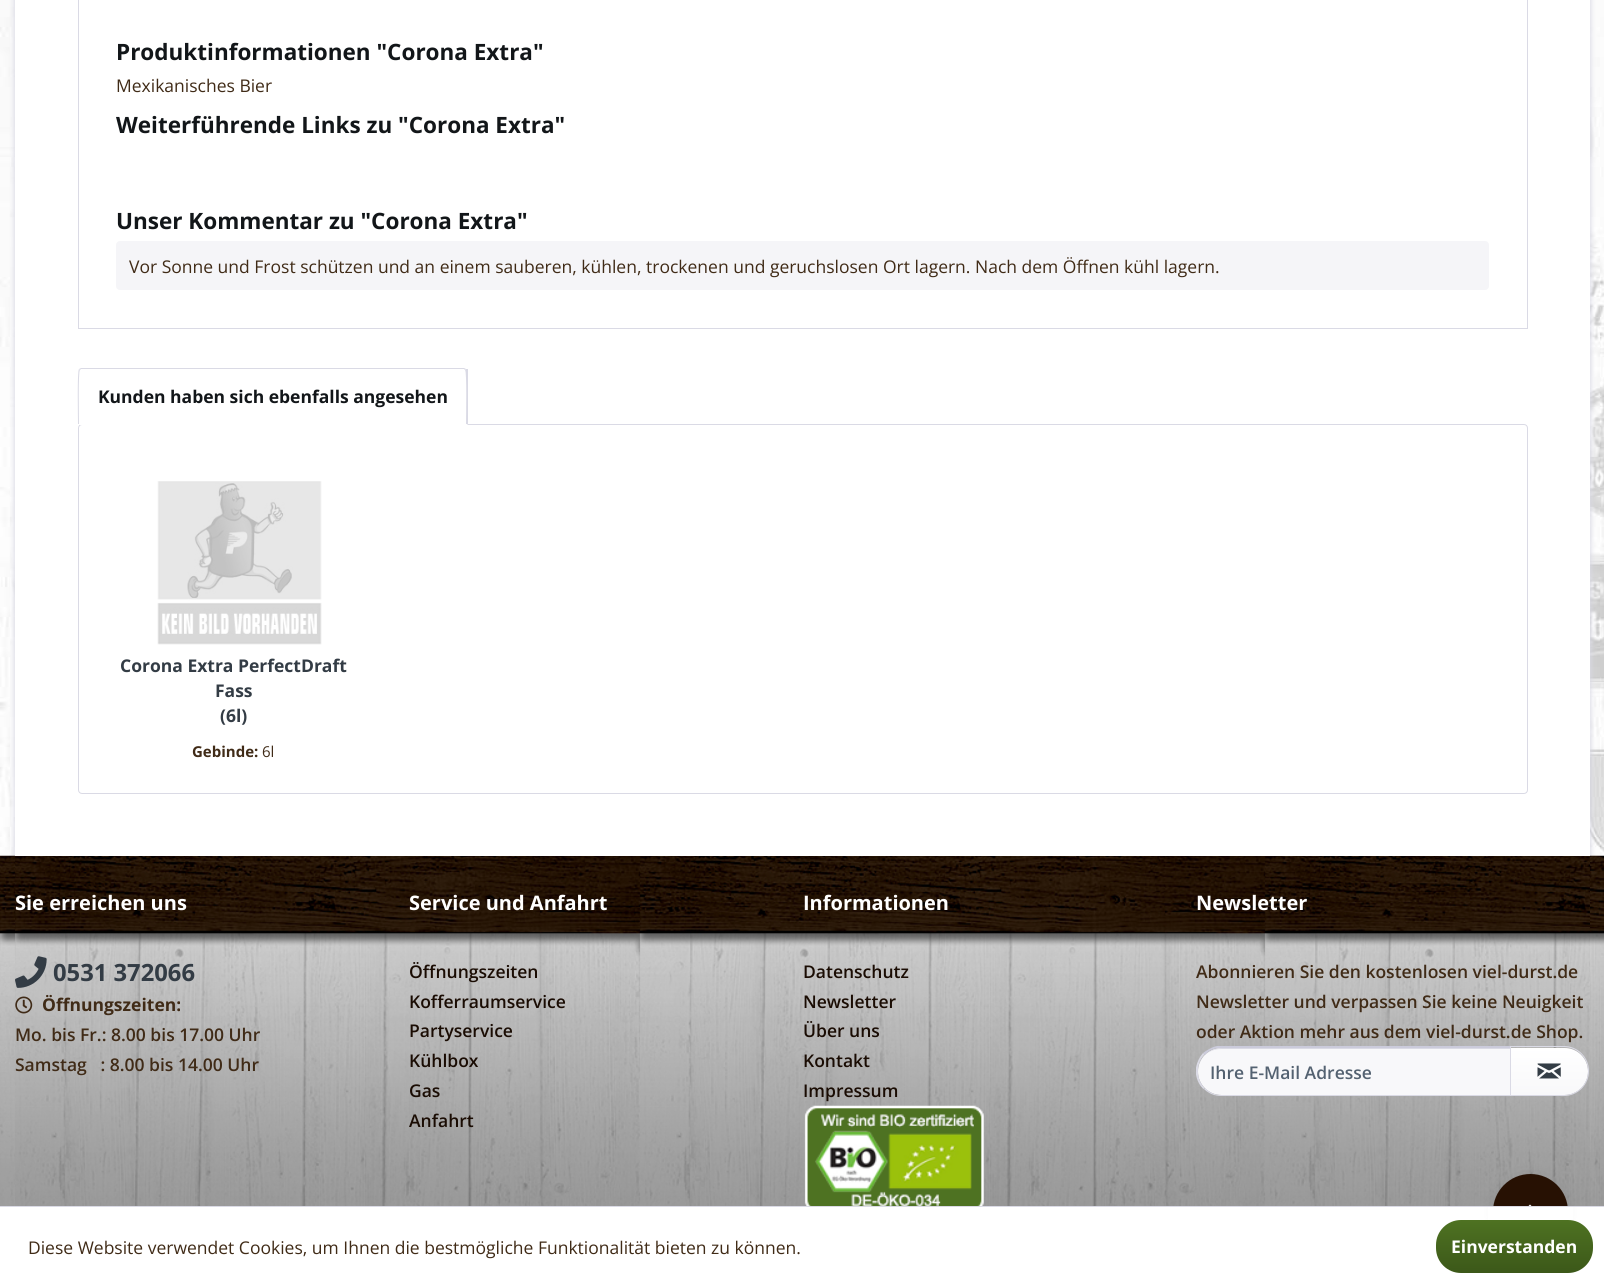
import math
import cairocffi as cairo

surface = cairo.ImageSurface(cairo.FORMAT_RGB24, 1604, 1286)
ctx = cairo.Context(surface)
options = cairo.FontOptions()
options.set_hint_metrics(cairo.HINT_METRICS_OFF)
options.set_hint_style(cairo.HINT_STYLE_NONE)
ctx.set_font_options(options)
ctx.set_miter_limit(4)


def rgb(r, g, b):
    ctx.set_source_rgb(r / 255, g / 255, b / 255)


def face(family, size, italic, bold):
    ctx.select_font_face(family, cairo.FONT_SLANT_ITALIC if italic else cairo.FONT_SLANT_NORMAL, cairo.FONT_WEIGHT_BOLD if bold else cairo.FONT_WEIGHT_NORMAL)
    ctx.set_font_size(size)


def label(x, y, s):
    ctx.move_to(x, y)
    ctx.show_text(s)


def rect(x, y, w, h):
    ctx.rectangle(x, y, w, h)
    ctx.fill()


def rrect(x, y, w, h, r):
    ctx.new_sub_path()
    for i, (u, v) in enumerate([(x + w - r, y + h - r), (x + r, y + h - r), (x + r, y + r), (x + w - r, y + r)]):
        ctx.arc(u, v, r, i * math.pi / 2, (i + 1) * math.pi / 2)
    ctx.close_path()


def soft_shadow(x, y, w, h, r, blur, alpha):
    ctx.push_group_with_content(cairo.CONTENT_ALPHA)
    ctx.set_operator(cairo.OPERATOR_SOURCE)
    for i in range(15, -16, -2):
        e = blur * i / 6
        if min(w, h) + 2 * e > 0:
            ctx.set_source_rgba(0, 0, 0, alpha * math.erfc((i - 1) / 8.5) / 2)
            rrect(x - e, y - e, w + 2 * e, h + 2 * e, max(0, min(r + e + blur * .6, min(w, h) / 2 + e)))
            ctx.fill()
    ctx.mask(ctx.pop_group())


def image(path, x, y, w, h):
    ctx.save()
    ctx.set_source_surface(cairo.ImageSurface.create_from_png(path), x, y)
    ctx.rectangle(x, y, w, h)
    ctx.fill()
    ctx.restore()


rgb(255, 255, 255)
ctx.paint()
image('image0.png', 0, 0, 1604, 856)
rgb(218, 218, 229)
soft_shadow(14, -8, 1577, 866, 0, 2.5, 1)
image('image2.png', 0, 855, 1604, 351)
rgb(255, 255, 255)
rect(15, 0, 1575, 856)
ctx.rectangle(78.5, -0.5, 1449, 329)
rgb(218, 218, 229)
ctx.set_line_width(1)
ctx.stroke()
face('Open Sans', 22.5, 0, 1)
rgb(18, 22, 25)
label(116, 60, 'Produktinformationen "Corona Extra"')
face('Open Sans', 17.5, 0, 0)
rgb(64, 43, 23)
label(116, 92, 'Mexikanisches Bier')
face('Open Sans', 22.5, 0, 1)
rgb(18, 22, 25)
label(116, 133, 'Weiterführende Links zu "Corona Extra"')
label(116, 229, 'Unser Kommentar zu "Corona Extra"')
rgb(245, 245, 248)
rrect(116, 241, 1373, 49, 4)
ctx.fill()
face('Open Sans', 17.5, 0, 0)
rgb(64, 43, 23)
label(129, 273, 'Vor Sonne und Frost schützen und an einem sauberen, kühlen, trockenen und geruchslosen Ort lagern. Nach dem Öffnen kühl lagern.')
rrect(78.5, 424.5, 1449, 369, 3.5)
rgb(218, 218, 229)
ctx.stroke()
rgb(255, 255, 255)
ctx.new_path()
ctx.move_to(82, 368)
ctx.line_to(464, 368)
ctx.curve_to(466, 368, 468, 370, 468, 372)
ctx.line_to(468, 425)
ctx.line_to(78, 425)
ctx.line_to(78, 372)
ctx.curve_to(78, 370, 80, 368, 82, 368)
ctx.close_path()
ctx.fill()
rgb(218, 218, 229)
ctx.new_path()
ctx.move_to(81, 368)
ctx.line_to(79, 369)
ctx.line_to(80, 370)
ctx.line_to(81, 369)
ctx.line_to(464, 369)
ctx.line_to(465, 370)
ctx.line_to(466, 369)
ctx.line_to(464, 368)
ctx.close_path()
ctx.fill()
ctx.new_path()
ctx.move_to(468, 369)
ctx.line_to(468, 425)
ctx.line_to(466, 424)
ctx.curve_to(466, 418, 467, 371, 465, 370)
ctx.line_to(466, 369)
ctx.close_path()
ctx.fill()
rgb(255, 255, 255)
ctx.new_path()
ctx.move_to(468, 425)
ctx.line_to(466, 424)
ctx.line_to(79, 424)
ctx.line_to(78, 425)
ctx.close_path()
ctx.fill()
rgb(218, 218, 229)
ctx.new_path()
ctx.move_to(79, 369)
ctx.curve_to(77, 371, 78, 418, 78, 424)
ctx.line_to(79, 424)
ctx.curve_to(79, 418, 78, 371, 80, 370)
ctx.close_path()
ctx.fill()
face('Open Sans', 17.5, 0, 1)
rgb(18, 22, 25)
label(98, 403, 'Kunden haben sich ebenfalls angesehen')
image('image1.png', 157, 481, 165, 164)
rgb(51, 60, 69)
label(120, 672, 'Corona Extra PerfectDraft')
label(215, 697, 'Fass')
label(220, 722, '(6l)')
face('Open Sans', 15, 0, 1)
rgb(64, 43, 23)
label(192, 757, 'Gebinde:')
face('Open Sans', 15, 0, 0)
label(262, 757, '6l')
image('image3.png', 15, 856, 1575, 350)
face('Open Sans', 20, 0, 1)
rgb(255, 255, 255)
label(15, 910, 'Sie erreichen uns')
image('image4.png', 15, 956, 32, 32)
face('Open Sans', 23.75, 0, 1)
rgb(51, 60, 69)
label(53, 981, '0531 372066')
image('image5.png', 15, 996, 18, 18)
face('Open Sans', 17.5, 0, 1)
rgb(64, 43, 23)
label(42, 1011, 'Öffnungszeiten:')
face('Open Sans SemiBold', 17.5, 0, 0)
label(15, 1041, 'Mo. bis Fr.: 8.00 bis 17.00 Uhr')
label(15, 1071, 'Samstag   : 8.00 bis 14.00 Uhr')
face('Open Sans', 20, 0, 1)
rgb(255, 255, 255)
label(409, 910, 'Service und Anfahrt')
face('Open Sans SemiBold', 17.5, 0, 0)
rgb(26, 12, 3)
label(409, 978, 'Öffnungszeiten')
label(409, 1008, 'Kofferraumservice')
label(409, 1037, 'Partyservice')
label(409, 1067, 'Kühlbox')
label(409, 1097, 'Gas')
label(409, 1127, 'Anfahrt')
face('Open Sans', 20, 0, 1)
rgb(255, 255, 255)
label(803, 910, 'Informationen')
face('Open Sans SemiBold', 17.5, 0, 0)
rgb(26, 12, 3)
label(803, 978, 'Datenschutz')
label(803, 1008, 'Newsletter')
label(803, 1037, 'Über uns')
label(803, 1067, 'Kontakt')
label(803, 1097, 'Impressum')
image('image6.png', 804, 1105, 180, 101)
face('Open Sans', 20, 0, 1)
rgb(255, 255, 255)
label(1196, 910, 'Newsletter')
face('Open Sans SemiBold', 17.5, 0, 0)
rgb(64, 43, 23)
label(1196, 978, 'Abonnieren Sie den kostenlosen viel-durst.de')
label(1196, 1008, 'Newsletter und verpassen Sie keine Neuigkeit')
label(1196, 1038, 'oder Aktion mehr aus dem viel-durst.de Shop.')
rgb(248, 248, 250)
ctx.new_path()
ctx.move_to(1221.5, 1048)
ctx.line_to(1510, 1048)
ctx.line_to(1510, 1095)
ctx.line_to(1221.5, 1095)
ctx.curve_to(1208.5, 1095, 1198, 1084.5, 1198, 1071.5)
ctx.curve_to(1198, 1058.5, 1208.5, 1048, 1221.5, 1048)
ctx.close_path()
ctx.fill()
rgb(218, 218, 229)
ctx.new_path()
ctx.move_to(1221, 1049)
ctx.line_to(1510, 1049)
ctx.line_to(1510, 1048)
ctx.line_to(1222, 1048)
ctx.curve_to(1209, 1048, 1198, 1059, 1198, 1072)
ctx.curve_to(1198, 1059, 1208, 1049, 1221, 1049)
ctx.close_path()
ctx.fill()
rgb(203, 203, 219)
ctx.new_path()
ctx.move_to(1221, 1048)
ctx.curve_to(1214, 1048, 1209, 1050, 1205, 1055)
ctx.line_to(1203, 1053)
ctx.curve_to(1207, 1050, 1212, 1047, 1217, 1046)
ctx.line_to(1511, 1046)
ctx.line_to(1510, 1048)
ctx.close_path()
ctx.fill()
rgb(218, 218, 229)
ctx.new_path()
ctx.move_to(1511, 1096)
ctx.line_to(1510, 1095)
ctx.line_to(1221, 1095)
ctx.curve_to(1214, 1095, 1209, 1092, 1205, 1088)
ctx.line_to(1204, 1089)
ctx.curve_to(1208, 1093, 1214, 1096, 1221, 1096)
ctx.close_path()
ctx.fill()
ctx.new_path()
ctx.move_to(1196, 1067.5)
ctx.curve_to(1197, 1062, 1199.5, 1057, 1203, 1053)
ctx.line_to(1204.5, 1054.5)
ctx.curve_to(1195.5, 1063.5, 1196, 1079, 1204.5, 1088)
ctx.line_to(1203.5, 1089)
ctx.curve_to(1199.5, 1085.5, 1197, 1080.5, 1196, 1074.5)
ctx.close_path()
ctx.fill()
rgb(84, 98, 113)
label(1210, 1079, 'Ihre E-Mail Adresse')
gradient = cairo.LinearGradient(1549, 1048, 1549, 1095)
gradient.add_color_stop_rgba(0, 1, 1, 1, 1)
gradient.add_color_stop_rgba(1, 0.973, 0.973, 0.98, 1)
ctx.set_source(gradient)
ctx.new_path()
ctx.move_to(1511, 1048)
ctx.line_to(1564.5, 1048)
ctx.curve_to(1577.5, 1048, 1588, 1058.5, 1588, 1071.5)
ctx.curve_to(1588, 1084.5, 1577.5, 1095, 1564.5, 1095)
ctx.line_to(1511, 1095)
ctx.close_path()
ctx.fill()
ctx.new_path()
ctx.move_to(1510.5, 1046.5)
ctx.line_to(1564, 1046.5)
ctx.curve_to(1577.5, 1046.5, 1588.5, 1057.5, 1588.5, 1071)
ctx.curve_to(1588.5, 1084.5, 1577.5, 1095.5, 1564, 1095.5)
ctx.line_to(1510.5, 1095.5)
ctx.close_path()
rgb(218, 218, 229)
ctx.stroke()
image('image7.png', 1537, 1063, 24, 16)
rgb(0, 0, 0)
soft_shadow(1493, 1174, 75, 75, 37.5, 6, 0.05)
rgb(39, 17, 3)
ctx.arc(1530.5, 1211.5, 37.5, 0, 2 * math.pi)
ctx.fill()
rgb(255, 255, 255)
ctx.new_path()
ctx.move_to(1530, 1204.5)
ctx.line_to(1540, 1214.5)
ctx.line_to(1537, 1217.5)
ctx.line_to(1530, 1210.5)
ctx.line_to(1523, 1217.5)
ctx.line_to(1520, 1214.5)
ctx.close_path()
ctx.fill()
rect(1488, 1207, 85, 47)
rgb(218, 218, 229)
rect(0, 1206, 1604, 1)
face('Open Sans', 17.5, 0, 0)
rgb(64, 43, 23)
label(28, 1254, 'Diese Website verwendet Cookies, um Ihnen die bestmögliche Funktionalität bieten zu können.')
gradient = cairo.LinearGradient(1514, 1220, 1514, 1273)
gradient.add_color_stop_rgba(0, 0.306, 0.447, 0.133, 1)
gradient.add_color_stop_rgba(1, 0.235, 0.345, 0.098, 1)
ctx.set_source(gradient)
rrect(1436, 1220, 157, 53, 25)
ctx.fill()
face('Open Sans', 17.5, 0, 1)
rgb(255, 255, 255)
label(1451, 1253, 'Einverstanden')
surface.write_to_png('render.png')
